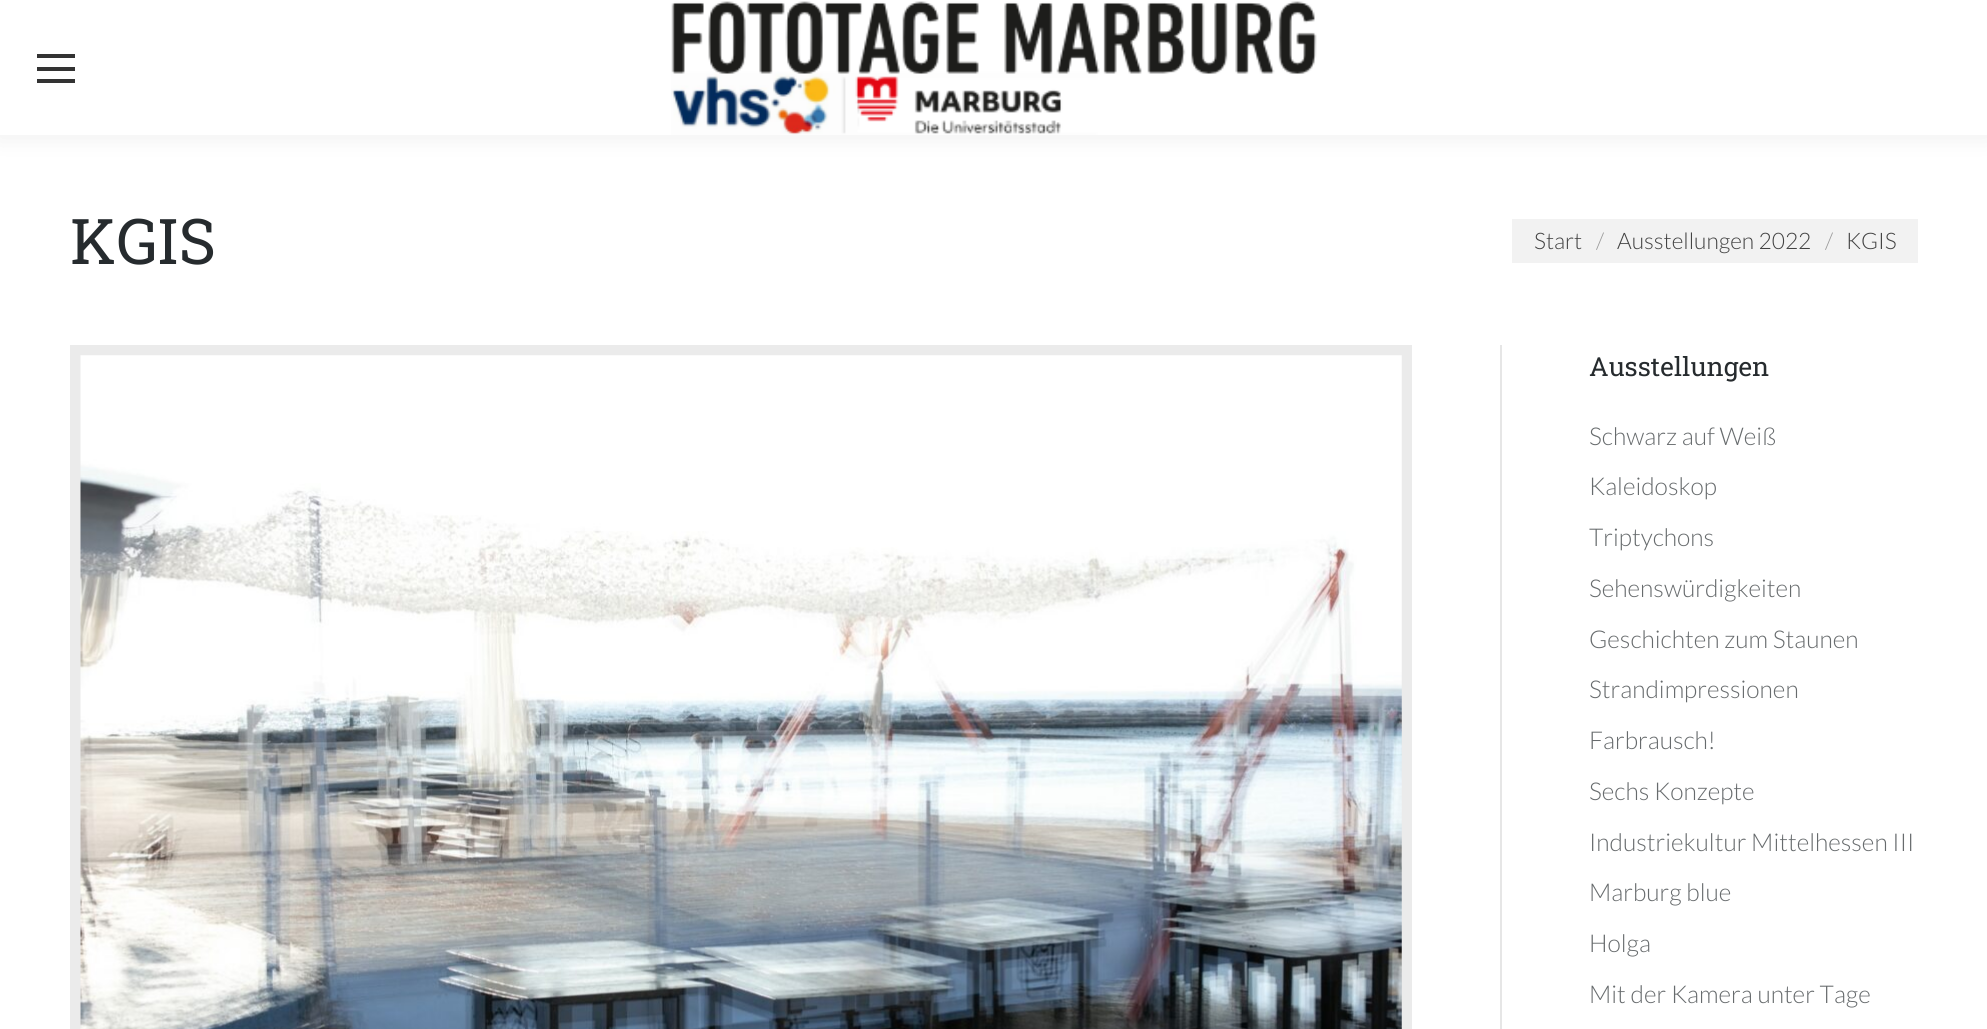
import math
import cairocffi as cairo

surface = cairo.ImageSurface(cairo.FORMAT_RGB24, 1987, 1029)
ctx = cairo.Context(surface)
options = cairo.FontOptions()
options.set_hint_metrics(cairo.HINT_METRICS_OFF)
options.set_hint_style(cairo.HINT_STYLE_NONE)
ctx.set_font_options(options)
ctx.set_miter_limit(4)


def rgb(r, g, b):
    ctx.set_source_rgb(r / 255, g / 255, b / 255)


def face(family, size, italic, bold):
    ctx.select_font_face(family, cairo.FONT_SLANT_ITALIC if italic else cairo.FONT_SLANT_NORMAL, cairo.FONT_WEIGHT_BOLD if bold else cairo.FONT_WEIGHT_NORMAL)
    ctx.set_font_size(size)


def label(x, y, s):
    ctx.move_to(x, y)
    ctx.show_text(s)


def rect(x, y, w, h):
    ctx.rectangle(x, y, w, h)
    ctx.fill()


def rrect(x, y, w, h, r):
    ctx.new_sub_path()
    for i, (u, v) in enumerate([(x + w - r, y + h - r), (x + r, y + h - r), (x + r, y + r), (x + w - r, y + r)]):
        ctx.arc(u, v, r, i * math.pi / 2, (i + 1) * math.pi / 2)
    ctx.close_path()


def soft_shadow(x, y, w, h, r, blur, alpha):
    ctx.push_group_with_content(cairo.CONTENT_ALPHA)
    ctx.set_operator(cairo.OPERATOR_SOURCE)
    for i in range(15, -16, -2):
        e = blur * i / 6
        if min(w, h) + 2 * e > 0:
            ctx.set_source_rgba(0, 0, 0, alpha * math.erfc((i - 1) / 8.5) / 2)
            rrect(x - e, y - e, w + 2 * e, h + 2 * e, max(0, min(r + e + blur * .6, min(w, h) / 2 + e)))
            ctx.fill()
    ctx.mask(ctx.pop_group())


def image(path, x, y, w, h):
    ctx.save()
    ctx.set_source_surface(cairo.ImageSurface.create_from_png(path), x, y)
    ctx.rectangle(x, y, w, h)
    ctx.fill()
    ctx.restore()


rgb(255, 255, 255)
ctx.paint()
rgb(0, 0, 0)
soft_shadow(-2, -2, 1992, 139, 0, 13, 0.07)
rgb(255, 255, 255)
rect(0, 0, 1987, 135)
rgb(51, 51, 51)
rect(37, 54, 38, 4)
rect(37, 67, 38, 4)
rect(37, 79, 38, 4)
image('image0.png', 671, 1, 646, 134)
face('Roboto Slab', 63, 0, 0)
rgb(38, 43, 46)
label(70, 264, 'KGIS')
rgb(242, 242, 242)
rect(1512, 219, 406, 44)
face('Lato Light', 22.75, 0, 0)
rgb(66, 66, 66)
label(1534, 249, 'Start')
rgb(154, 154, 154)
label(1596, 249, '/')
rgb(66, 66, 66)
label(1617, 249, 'Ausstellungen 2022')
rgb(154, 154, 154)
label(1825, 249, '/')
rgb(66, 66, 66)
label(1846, 249, 'KGIS')
rgb(235, 235, 235)
rect(70, 345, 1342, 684)
image('image1.png', 80, 355, 1322, 674)
rgb(230, 230, 230)
rect(1500, 345, 2, 684)
face('Roboto Slab', 26.25, 0, 0)
rgb(38, 43, 46)
label(1589, 376, 'Ausstellungen')
face('Lato Light', 24.5, 0, 0)
rgb(103, 107, 109)
label(1589, 445, 'Schwarz auf Weiß')
label(1589, 495, 'Kaleidoskop')
label(1589, 546, 'Triptychons')
label(1589, 597, 'Sehenswürdigkeiten')
label(1589, 648, 'Geschichten zum Staunen')
label(1589, 698, 'Strandimpressionen')
label(1589, 749, 'Farbrausch!')
label(1589, 800, 'Sechs Konzepte')
label(1589, 851, 'Industriekultur Mittelhessen III')
label(1589, 901, 'Marburg blue')
label(1589, 952, 'Holga')
label(1589, 1003, 'Mit der Kamera unter Tage')
surface.write_to_png('render.png')
